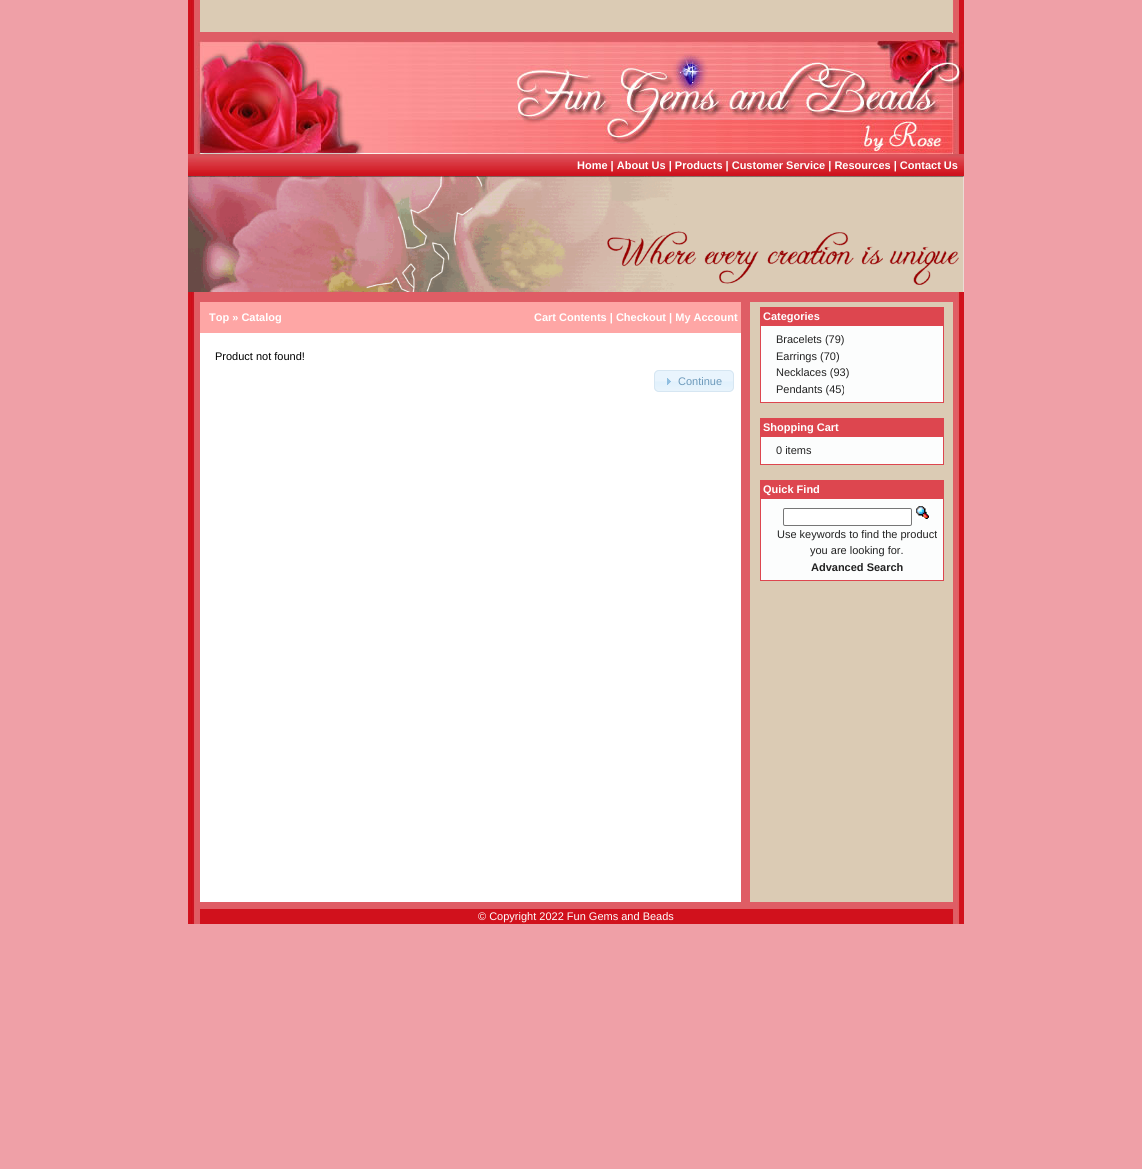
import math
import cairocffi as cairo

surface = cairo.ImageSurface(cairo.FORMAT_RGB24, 1142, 1169)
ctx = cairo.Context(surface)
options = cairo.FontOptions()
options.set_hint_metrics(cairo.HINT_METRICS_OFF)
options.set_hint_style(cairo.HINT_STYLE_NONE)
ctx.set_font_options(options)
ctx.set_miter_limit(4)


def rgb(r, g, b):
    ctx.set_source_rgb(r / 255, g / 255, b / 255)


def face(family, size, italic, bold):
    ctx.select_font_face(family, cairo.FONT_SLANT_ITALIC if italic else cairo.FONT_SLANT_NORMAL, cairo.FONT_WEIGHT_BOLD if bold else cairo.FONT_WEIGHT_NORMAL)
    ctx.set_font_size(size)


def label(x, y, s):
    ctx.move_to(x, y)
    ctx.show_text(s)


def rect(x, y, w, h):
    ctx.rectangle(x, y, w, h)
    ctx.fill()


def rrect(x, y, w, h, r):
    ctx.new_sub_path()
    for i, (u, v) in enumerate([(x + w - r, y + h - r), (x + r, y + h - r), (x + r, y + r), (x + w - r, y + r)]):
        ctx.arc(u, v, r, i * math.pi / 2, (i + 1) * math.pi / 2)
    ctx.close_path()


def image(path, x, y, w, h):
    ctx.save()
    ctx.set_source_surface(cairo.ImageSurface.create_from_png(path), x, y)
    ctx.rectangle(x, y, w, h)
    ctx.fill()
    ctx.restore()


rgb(239, 160, 167)
ctx.paint()
rgb(219, 203, 180)
rect(200, 0, 752, 32)
image('image0.png', 188, 0, 12, 32)
image('image2.png', 188, 32, 776, 122)
image('image1.png', 952, 0, 12, 33)
image('image3.png', 188, 154, 776, 22)
face('Liberation Sans', 11, 0, 1)
rgb(255, 255, 255)
label(577, 169, 'Home | About Us | Products | Customer Service | Resources | Contact Us')
image('image4.png', 188, 176, 776, 116)
image('image5.png', 188, 292, 776, 10)
rgb(219, 203, 180)
rect(750, 302, 203, 600)
image('image6.png', 188, 302, 776, 600)
rgb(255, 255, 255)
rect(200, 333, 541, 569)
rgb(223, 93, 101)
rect(741, 302, 9, 600)
rgb(254, 166, 165)
rect(200, 302, 541, 31)
rgb(255, 255, 255)
label(209, 321, 'Top » Catalog')
label(534, 321, 'Cart Contents | Checkout | My Account')
face('Liberation Sans', 11, 0, 0)
rgb(0, 0, 0)
label(215, 360, 'Product not found!')
rgb(233, 244, 253)
rrect(654, 370, 80, 22, 5)
ctx.fill()
image('image7.png', 654, 381, 80, 10)
rrect(654.5, 370.5, 79, 21, 4.5)
rgb(214, 230, 242)
ctx.set_line_width(1)
ctx.stroke()
image('image8.png', 667, 378, 4, 7)
rgb(109, 154, 187)
label(678, 385, 'Continue')
rgb(221, 70, 79)
rect(760, 307, 184, 18)
face('Liberation Sans', 11, 0, 1)
rgb(255, 255, 255)
label(763, 320, 'Categories')
rgb(252, 253, 253)
ctx.rectangle(760.5, 325.5, 183, 77)
ctx.fill_preserve()
rgb(221, 70, 79)
ctx.stroke()
face('Liberation Sans', 11, 0, 0)
rgb(34, 34, 34)
label(776, 343, 'Bracelets (79)')
label(776, 360, 'Earrings (70)')
label(776, 376, 'Necklaces (93)')
label(776, 393, 'Pendants (45)')
rgb(221, 70, 79)
rect(760, 418, 184, 18)
face('Liberation Sans', 11, 0, 1)
rgb(255, 255, 255)
label(763, 431, 'Shopping Cart')
rgb(252, 253, 253)
ctx.rectangle(760.5, 436.5, 183, 28)
ctx.fill_preserve()
rgb(221, 70, 79)
ctx.stroke()
face('Liberation Sans', 11, 0, 0)
rgb(34, 34, 34)
label(776, 454, '0 items')
rgb(221, 70, 79)
rect(760, 480, 184, 18)
face('Liberation Sans', 11, 0, 1)
rgb(255, 255, 255)
label(763, 493, 'Quick Find')
rgb(252, 253, 253)
ctx.rectangle(760.5, 498.5, 183, 82)
ctx.fill_preserve()
rgb(221, 70, 79)
ctx.stroke()
rgb(255, 255, 255)
rrect(783.5, 508.5, 128, 17, 1.5)
ctx.fill_preserve()
rgb(118, 118, 118)
ctx.stroke()
image('image9.png', 916, 506, 13, 13)
face('Liberation Sans', 11, 0, 0)
rgb(34, 34, 34)
label(777, 538, 'Use keywords to find the product')
label(810, 554, 'you are looking for.')
face('Liberation Sans', 11, 0, 1)
label(811, 571, 'Advanced Search')
image('image10.png', 188, 902, 776, 22)
image('image11.png', 200, 902, 760, 7)
face('Liberation Sans', 11, 0, 0)
rgb(255, 255, 255)
label(478, 920, '© Copyright 2022 Fun Gems and Beads')
surface.write_to_png('render.png')
